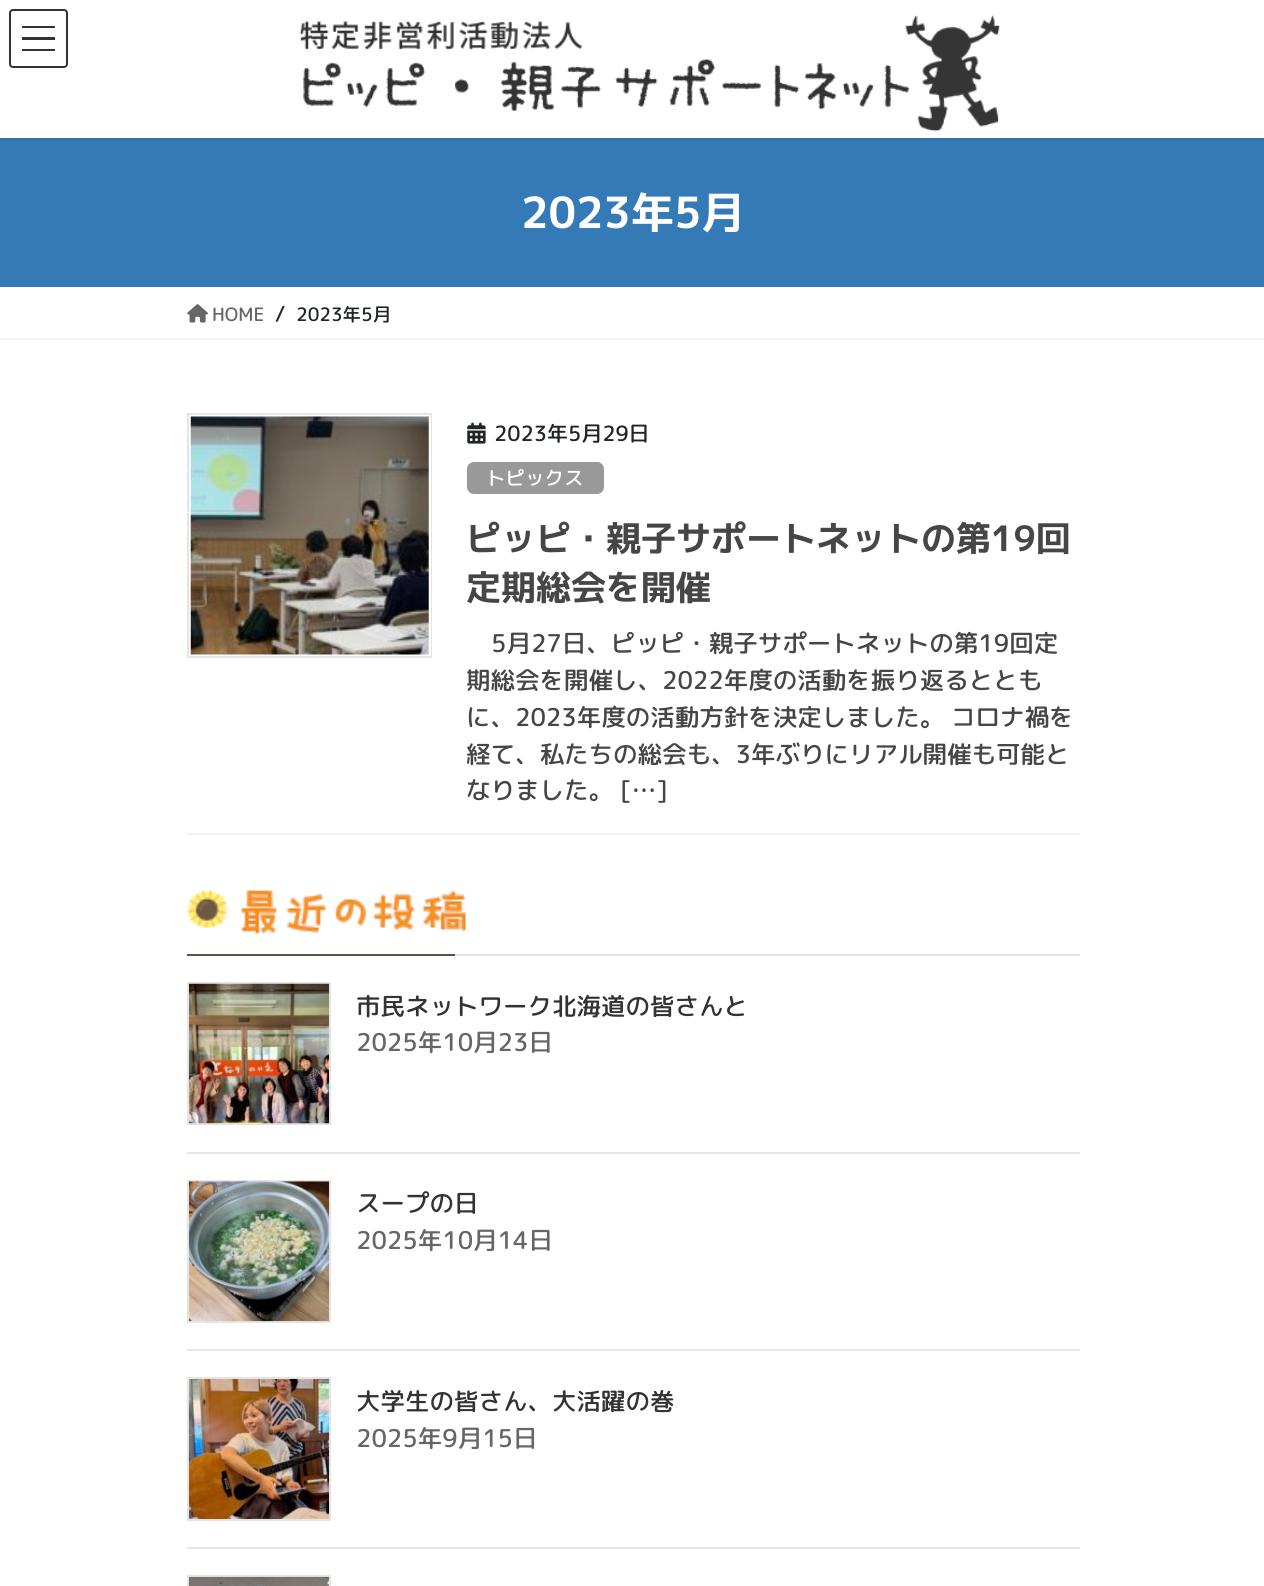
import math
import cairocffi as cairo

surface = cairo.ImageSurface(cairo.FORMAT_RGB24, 1264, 1586)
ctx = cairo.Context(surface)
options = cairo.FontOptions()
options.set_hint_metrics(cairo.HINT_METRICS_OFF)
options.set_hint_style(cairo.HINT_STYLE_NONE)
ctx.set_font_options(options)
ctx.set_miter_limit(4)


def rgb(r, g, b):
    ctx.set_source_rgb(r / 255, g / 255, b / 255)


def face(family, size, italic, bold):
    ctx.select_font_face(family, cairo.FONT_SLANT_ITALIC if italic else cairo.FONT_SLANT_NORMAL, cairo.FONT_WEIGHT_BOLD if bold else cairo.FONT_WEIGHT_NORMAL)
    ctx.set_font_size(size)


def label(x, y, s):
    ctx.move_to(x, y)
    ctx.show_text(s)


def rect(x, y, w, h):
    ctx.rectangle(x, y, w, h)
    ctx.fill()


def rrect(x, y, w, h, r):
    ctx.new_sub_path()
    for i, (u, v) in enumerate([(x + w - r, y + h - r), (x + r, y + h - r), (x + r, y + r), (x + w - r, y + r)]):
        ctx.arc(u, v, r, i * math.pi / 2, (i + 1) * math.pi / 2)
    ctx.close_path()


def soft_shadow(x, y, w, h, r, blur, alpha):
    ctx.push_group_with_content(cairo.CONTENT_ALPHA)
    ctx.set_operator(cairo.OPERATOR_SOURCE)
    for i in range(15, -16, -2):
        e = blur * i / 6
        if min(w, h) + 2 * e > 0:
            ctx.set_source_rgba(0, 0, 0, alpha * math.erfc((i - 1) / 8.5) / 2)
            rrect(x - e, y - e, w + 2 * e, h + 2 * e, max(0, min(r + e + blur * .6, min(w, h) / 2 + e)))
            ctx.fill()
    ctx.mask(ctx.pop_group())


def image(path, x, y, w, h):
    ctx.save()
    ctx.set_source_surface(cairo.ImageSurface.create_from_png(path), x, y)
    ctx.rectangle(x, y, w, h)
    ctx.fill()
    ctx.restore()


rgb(255, 255, 255)
ctx.paint()
rgb(51, 122, 183)
rect(0, 138, 1264, 149)
ctx.save()
ctx.rectangle(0, 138, 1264, 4)
ctx.clip()
rgb(0, 0, 0)
soft_shadow(0, 2, 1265, 138, 0, 2.5, 0.1)
ctx.restore()
image('image0.png', 299, 14, 701, 118)
rgb(51, 51, 51)
rect(22, 26, 33, 2)
rect(22, 37, 33, 3)
rect(22, 49, 33, 2)
rrect(10, 10, 57, 57, 3)
ctx.stroke()
face('M PLUS 1p', 43, 0, 1)
rgb(255, 255, 255)
label(521, 228, '2023年5月')
rgb(242, 242, 242)
rect(0, 338, 1264, 2)
image('image1.png', 187, 304, 21, 19)
face('Rounded Mplus 1c Medium', 18.5, 0, 0)
rgb(102, 102, 102)
label(212, 321, 'HOME')
face('Rounded Mplus 1c Medium', 21, 0, 0)
rgb(33, 37, 41)
label(275, 321, '/')
face('Rounded Mplus 1c Medium', 18.5, 0, 0)
label(296, 321, '2023年5月')
rgb(242, 242, 242)
rect(187, 833, 893, 2)
ctx.rectangle(188, 414, 243, 243)
rgb(229, 229, 229)
ctx.stroke()
ctx.rectangle(190, 416, 240, 239)
rgb(255, 255, 255)
ctx.stroke()
image('image2.png', 190, 416, 239, 239)
image('image3.png', 467, 422, 19, 22)
face('Rounded Mplus 1c Medium', 21, 0, 0)
rgb(33, 37, 41)
label(494, 441, '2023年5月29日')
rgb(153, 153, 153)
rrect(467, 462, 137, 32, 7)
ctx.fill()
face('Rounded Mplus 1c Medium', 19.5, 0, 0)
rgb(255, 255, 255)
label(486, 485, 'トピックス')
face('M PLUS 1p', 35, 0, 1)
rgb(70, 70, 70)
label(466, 551, 'ピッピ・親子サポートネットの第19回')
label(466, 600, '定期総会を開催')
face('Rounded Mplus 1c Medium', 24.5, 0, 0)
label(491, 652, '5月27日、ピッピ・親子サポートネットの第19回定')
label(466, 689, '期総会を開催し、2022年度の活動を振り返るととも')
label(466, 726, 'に、2023年度の活動方針を決定しました。 コロナ禍を')
label(466, 763, '経て、私たちの総会も、3年ぶりにリアル開催も可能と')
label(466, 799, 'なりました。 […]')
rgb(230, 230, 230)
rect(455, 954, 625, 2)
image('image4.png', 187, 889, 281, 45)
rgb(94, 80, 66)
rect(187, 954, 268, 2)
rgb(229, 229, 229)
rect(187, 1152, 893, 2)
ctx.rectangle(188, 983, 142, 141)
ctx.stroke()
image('image5.png', 189, 983, 140, 141)
rgb(51, 51, 51)
label(356, 1015, '市民ネットワーク北海道の皆さんと')
rgb(102, 102, 102)
label(356, 1051, '2025年10月23日')
rgb(229, 229, 229)
rect(187, 1349, 893, 2)
ctx.rectangle(188, 1181, 142, 141)
ctx.stroke()
image('image6.png', 189, 1181, 140, 141)
rgb(51, 51, 51)
label(356, 1212, 'スープの日')
rgb(102, 102, 102)
label(356, 1249, '2025年10月14日')
rgb(229, 229, 229)
rect(187, 1547, 893, 2)
ctx.rectangle(188, 1378, 142, 142)
ctx.stroke()
image('image7.png', 189, 1379, 140, 140)
rgb(51, 51, 51)
label(356, 1410, '大学生の皆さん、大活躍の巻')
rgb(102, 102, 102)
label(356, 1447, '2025年9月15日')
ctx.rectangle(188, 1576, 142, 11)
rgb(229, 229, 229)
ctx.stroke()
image('image8.png', 189, 1576, 140, 10)
surface.write_to_png('render.png')
